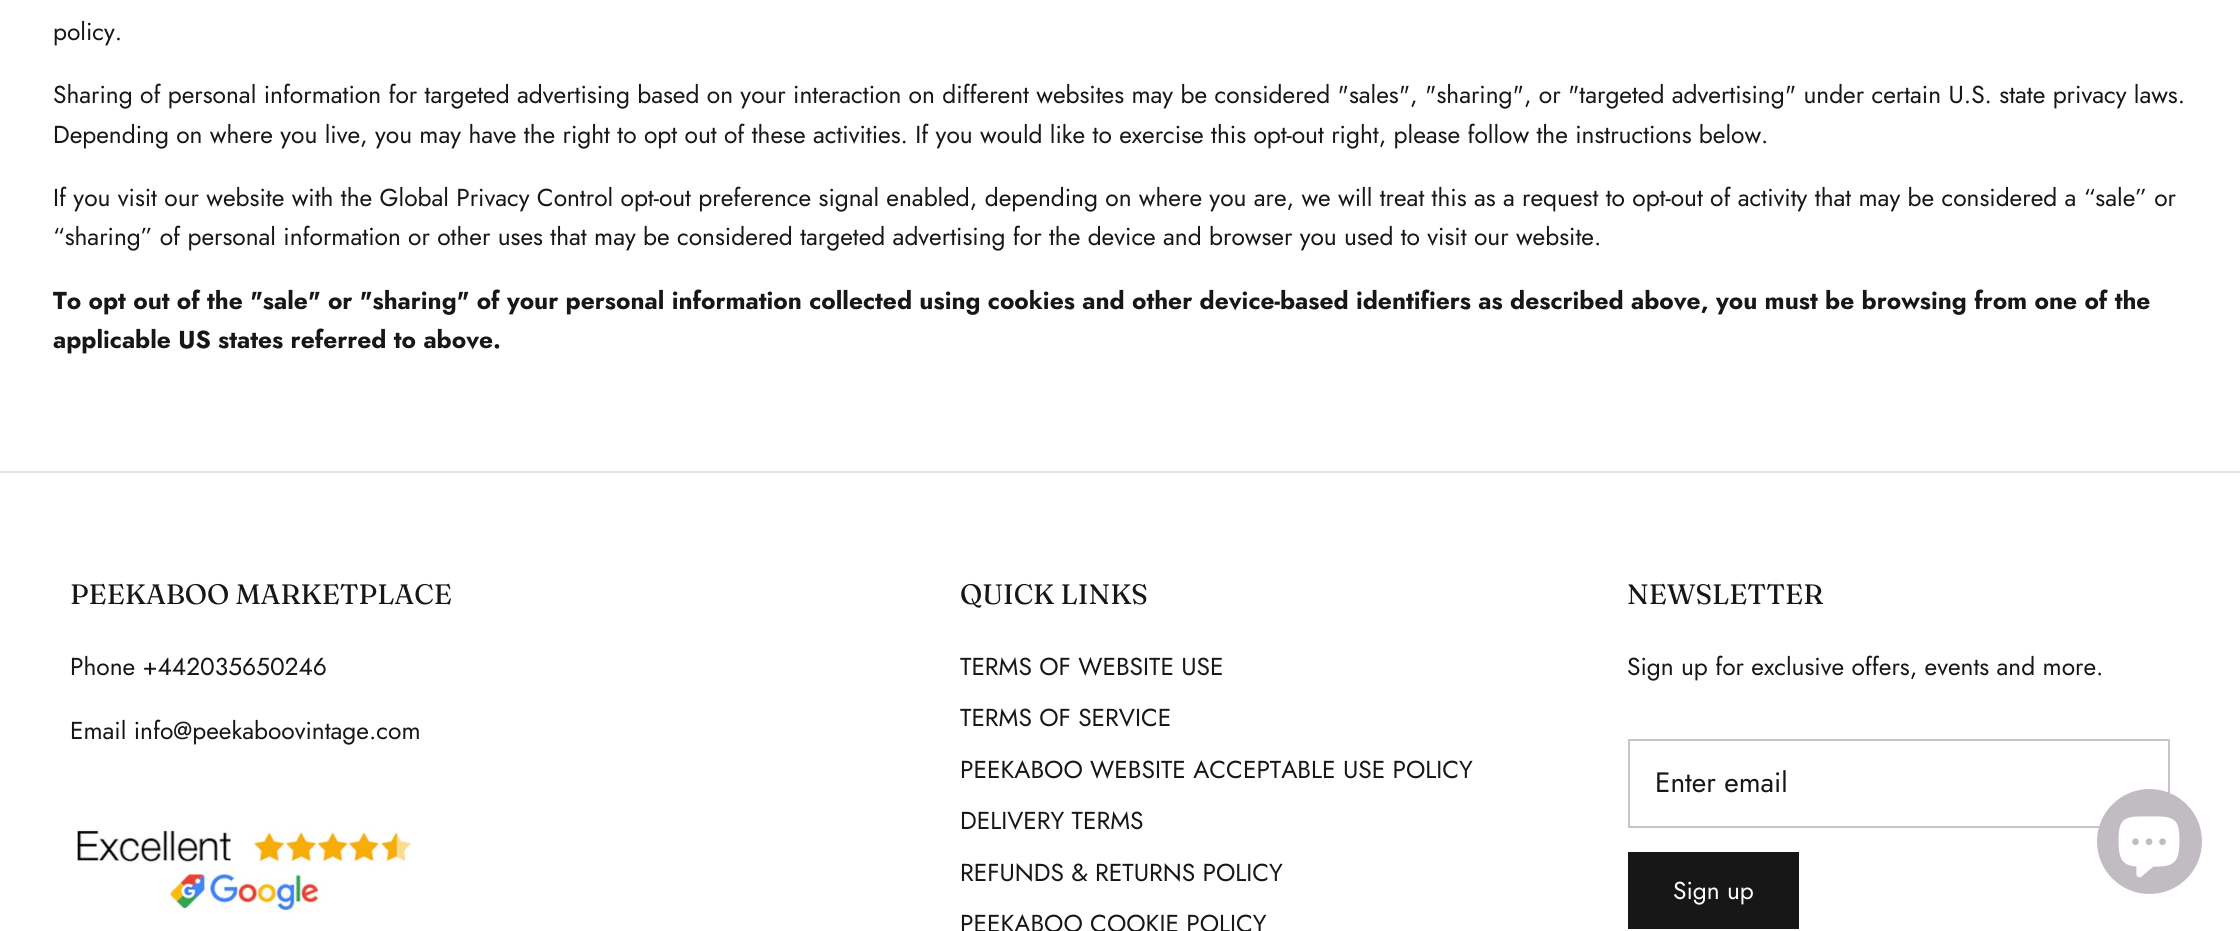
import math
import cairocffi as cairo

surface = cairo.ImageSurface(cairo.FORMAT_RGB24, 2240, 931)
ctx = cairo.Context(surface)
options = cairo.FontOptions()
options.set_hint_metrics(cairo.HINT_METRICS_OFF)
options.set_hint_style(cairo.HINT_STYLE_NONE)
ctx.set_font_options(options)
ctx.set_miter_limit(4)


def rgb(r, g, b):
    ctx.set_source_rgb(r / 255, g / 255, b / 255)


def face(family, size, italic, bold):
    ctx.select_font_face(family, cairo.FONT_SLANT_ITALIC if italic else cairo.FONT_SLANT_NORMAL, cairo.FONT_WEIGHT_BOLD if bold else cairo.FONT_WEIGHT_NORMAL)
    ctx.set_font_size(size)


def label(x, y, s):
    ctx.move_to(x, y)
    ctx.show_text(s)


def rect(x, y, w, h):
    ctx.rectangle(x, y, w, h)
    ctx.fill()


def image(path, x, y, w, h):
    ctx.save()
    ctx.set_source_surface(cairo.ImageSurface.create_from_png(path), x, y)
    ctx.rectangle(x, y, w, h)
    ctx.fill()
    ctx.restore()


rgb(255, 255, 255)
ctx.paint()
face('Jost', 24.5, 0, 0)
rgb(23, 23, 23)
label(53, 40, 'policy.')
label(53, 103, 'Sharing of personal information for targeted advertising based on your interaction on different websites may be considered "sales", "sharing", or "targeted advertising" under certain U.S. state privacy laws.')
label(53, 143, 'Depending on where you live, you may have the right to opt out of these activities. If you would like to exercise this opt-out right, please follow the instructions below.')
label(53, 206, 'If you visit our website with the Global Privacy Control opt-out preference signal enabled, depending on where you are, we will treat this as a request to opt-out of activity that may be considered a “sale” or')
label(53, 245, '“sharing” of personal information or other uses that may be considered targeted advertising for the device and browser you used to visit our website.')
face('Jost', 24.5, 0, 1)
label(53, 309, 'To opt out of the "sale" or "sharing" of your personal information collected using cookies and other device-based identifiers as described above, you must be browsing from one of the')
label(53, 348, 'applicable US states referred to above.')
rgb(228, 228, 228)
rect(0, 471, 2240, 2)
face('Fraunces', 28, 0, 0)
rgb(23, 23, 23)
label(70, 604, 'PEEKABOO MARKETPLACE')
face('Jost', 24.5, 0, 0)
label(70, 675, 'Phone +442035650246')
label(70, 739, 'Email info@peekaboovintage.com')
image('image0.png', 77, 829, 335, 84)
face('Fraunces', 28, 0, 0)
label(960, 604, 'QUICK LINKS')
face('Jost', 24.5, 0, 0)
label(960, 675, 'TERMS OF WEBSITE USE')
label(960, 726, 'TERMS OF SERVICE')
label(960, 778, 'PEEKABOO WEBSITE ACCEPTABLE USE POLICY')
label(960, 829, 'DELIVERY TERMS')
label(960, 881, 'REFUNDS & RETURNS POLICY')
label(960, 932, 'PEEKABOO COOKIE POLICY')
face('Fraunces', 28, 0, 0)
label(1627, 604, 'NEWSLETTER')
face('Jost', 24.5, 0, 0)
label(1627, 675, 'Sign up for exclusive offers, events and more.')
ctx.rectangle(1629, 740, 540, 87)
rgb(197, 197, 197)
ctx.stroke()
face('Jost', 28, 0, 0)
rgb(23, 23, 23)
label(1655, 792, 'Enter email')
rect(1628, 852, 171, 77)
face('Jost', 24.5, 0, 0)
rgb(255, 255, 255)
label(1673, 899, 'Sign up')
rgb(193, 188, 194)
ctx.new_path()
ctx.arc(2149.5, 841.5, 52.5, 0, 2 * math.pi)
ctx.fill()
image('image1.png', 2118, 816, 62, 62)
surface.write_to_png('render.png')
